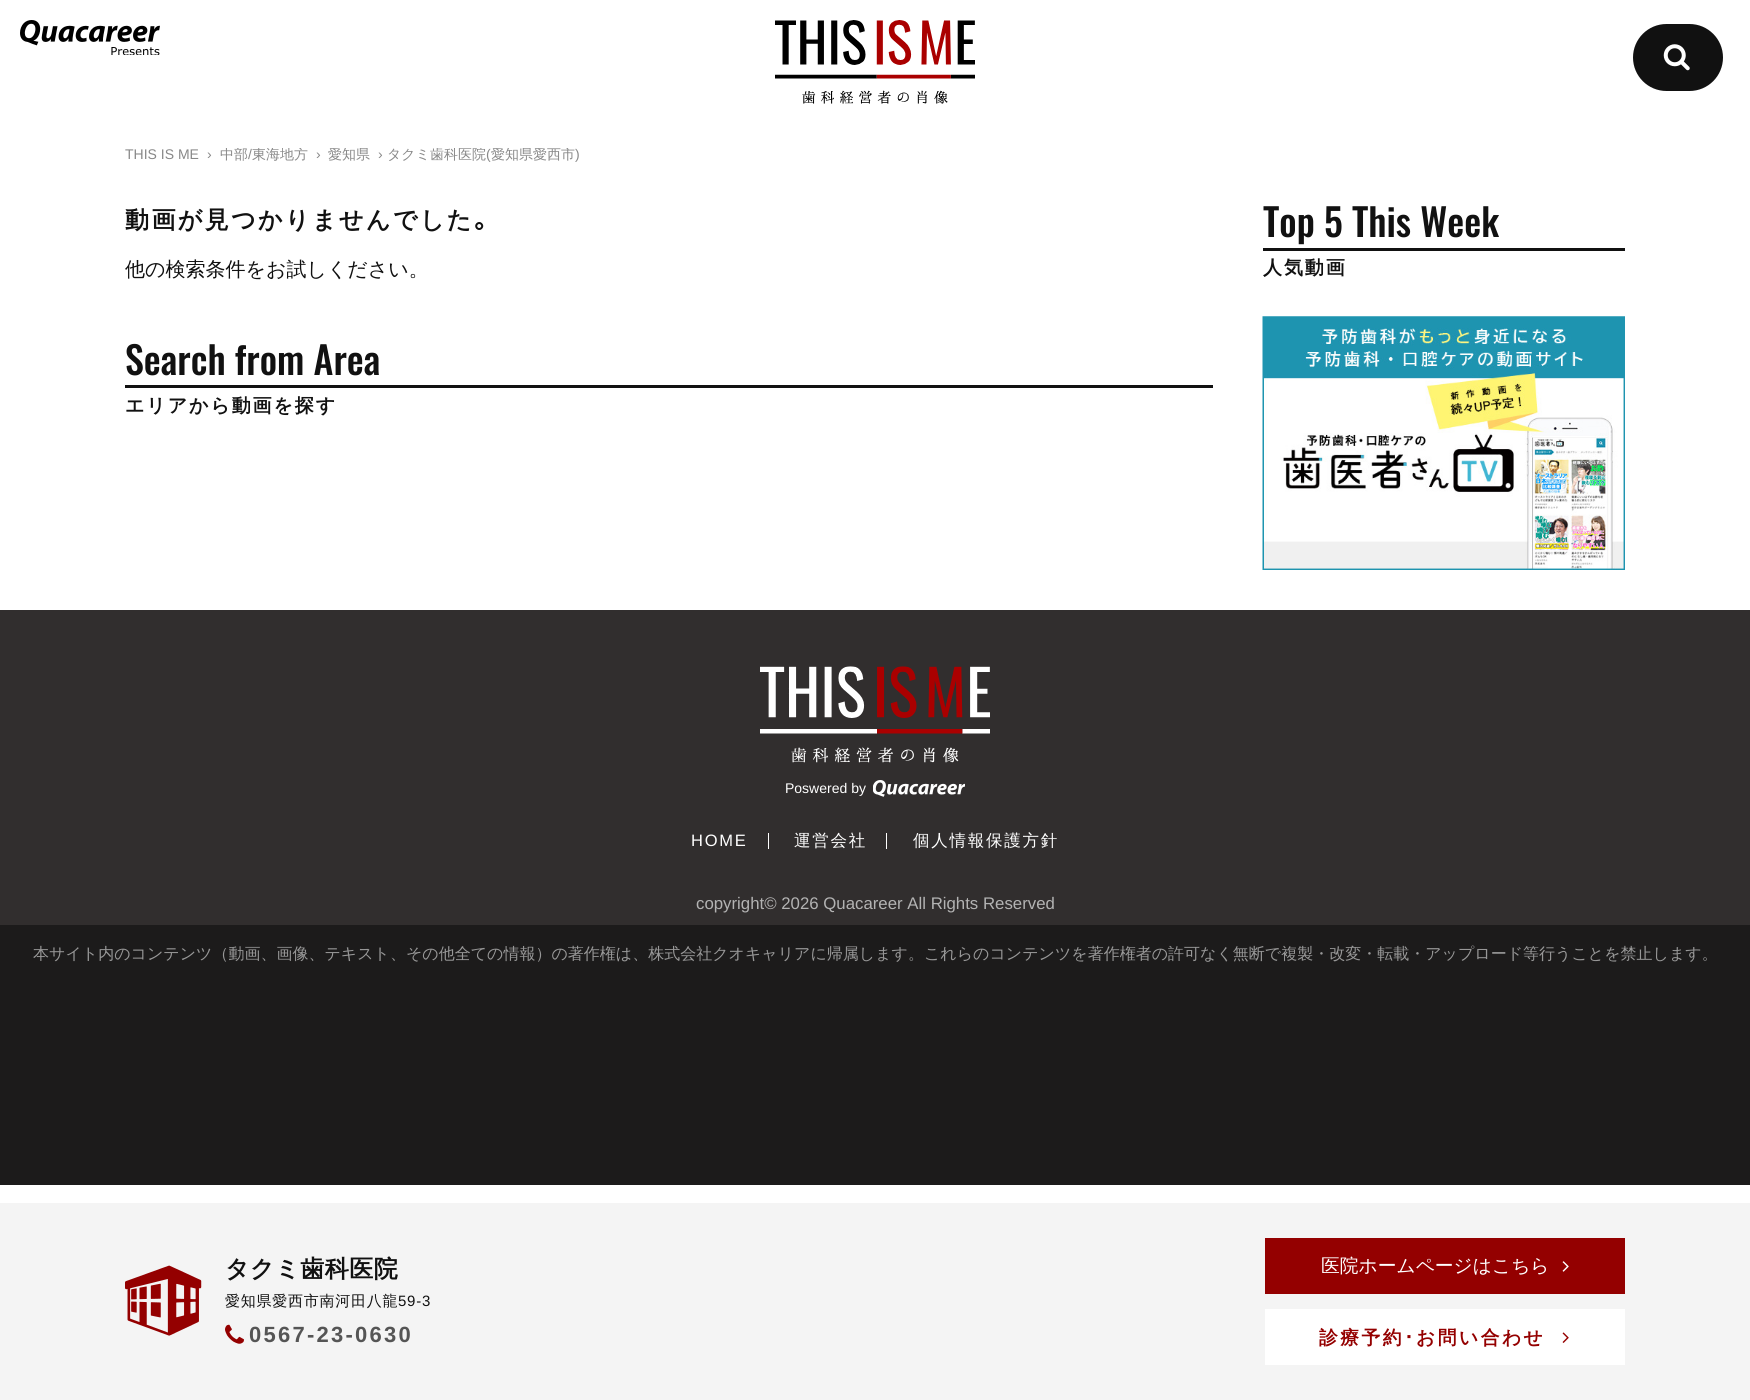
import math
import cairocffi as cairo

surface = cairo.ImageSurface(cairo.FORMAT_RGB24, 1750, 1400)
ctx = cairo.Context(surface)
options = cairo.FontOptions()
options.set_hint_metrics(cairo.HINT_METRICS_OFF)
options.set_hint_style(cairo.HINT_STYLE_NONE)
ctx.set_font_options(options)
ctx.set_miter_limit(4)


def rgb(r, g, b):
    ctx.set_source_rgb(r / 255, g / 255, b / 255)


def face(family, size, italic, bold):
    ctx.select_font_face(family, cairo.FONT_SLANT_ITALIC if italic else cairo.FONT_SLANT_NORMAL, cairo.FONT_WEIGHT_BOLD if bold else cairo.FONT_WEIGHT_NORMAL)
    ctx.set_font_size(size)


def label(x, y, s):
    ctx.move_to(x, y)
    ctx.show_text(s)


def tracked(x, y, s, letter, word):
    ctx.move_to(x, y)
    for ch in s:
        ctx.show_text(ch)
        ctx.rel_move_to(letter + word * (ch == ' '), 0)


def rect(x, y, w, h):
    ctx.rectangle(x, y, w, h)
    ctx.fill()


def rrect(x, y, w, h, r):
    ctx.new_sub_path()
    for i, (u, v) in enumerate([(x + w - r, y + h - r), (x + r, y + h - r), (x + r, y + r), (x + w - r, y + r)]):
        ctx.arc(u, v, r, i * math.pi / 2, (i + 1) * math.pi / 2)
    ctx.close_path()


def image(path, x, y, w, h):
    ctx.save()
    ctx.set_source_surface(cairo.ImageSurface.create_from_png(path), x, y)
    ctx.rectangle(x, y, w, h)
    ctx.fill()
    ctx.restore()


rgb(255, 255, 255)
ctx.paint()
image('image0.png', 20, 20, 140, 35)
image('image1.png', 775, 20, 200, 84)
rgb(17, 17, 17)
rrect(1633, 24, 90, 67, 33.5)
ctx.fill()
image('image2.png', 1663, 44, 27, 27)
face('Liberation Sans', 14, 0, 0)
rgb(136, 136, 136)
label(125, 159, 'THIS IS ME')
label(207, 159, '›')
ctx.save()
ctx.rectangle(125, 148, 1500, 15)
ctx.clip()
face('WenQuanYi Zen Hei Medium', 14, 0, 0)
label(220, 159, '中部')
ctx.restore()
label(248, 159, '/')
ctx.save()
ctx.rectangle(125, 148, 1500, 15)
ctx.clip()
face('WenQuanYi Zen Hei Medium', 14, 0, 0)
label(252, 159, '東海地方')
ctx.restore()
label(316, 159, '›')
ctx.save()
ctx.rectangle(125, 148, 1500, 15)
ctx.clip()
face('WenQuanYi Zen Hei Medium', 14, 0, 0)
label(328, 159, '愛知県')
ctx.restore()
label(378, 159, '›')
ctx.save()
ctx.rectangle(125, 148, 1500, 15)
ctx.clip()
face('WenQuanYi Zen Hei Medium', 14, 0, 0)
label(387, 159, 'タクミ歯科医院')
ctx.restore()
label(486, 159, '(')
ctx.save()
ctx.rectangle(125, 148, 1500, 15)
ctx.clip()
face('WenQuanYi Zen Hei Medium', 14, 0, 0)
label(491, 159, '愛知県愛西市')
ctx.restore()
label(575, 159, ')')
face('WenQuanYi Zen Hei', 24, 0, 1)
rgb(17, 17, 17)
tracked(125, 228, '動画が見つかりませんでした', 2.4, 0)
face('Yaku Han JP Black', 24, 0, 0)
tracked(474, 228, '。', 2.4, 0)
face('WenQuanYi Zen Hei Medium', 20, 0, 0)
label(125, 276, '他の検索条件をお試しください。')
rect(125, 385, 1088, 3)
face('Oswald Medium', 38, 0, 0)
label(125, 375, 'Search from Area')
face('WenQuanYi Zen Hei', 19, 0, 1)
tracked(125, 412, 'エリアから動画を探す', 1.9, 0)
rect(1263, 248, 362, 3)
face('Oswald Medium', 38, 0, 0)
label(1263, 237, 'Top 5 This Week')
face('WenQuanYi Zen Hei', 19, 0, 1)
tracked(1263, 274, '人気動画', 1.9, 0)
image('image3.png', 1262, 316, 363, 254)
rgb(49, 46, 46)
rect(0, 610, 1750, 315)
image('image4.png', 760, 666, 230, 97)
face('Liberation Sans', 14, 0, 0)
rgb(255, 255, 255)
label(785, 793, 'Poswered by')
image('image5.png', 873, 780, 92, 17)
rect(768, 833, 1, 16)
face('Liberation Sans', 16.5, 0, 0)
tracked(691, 846, 'HOME', 1.75, 0)
rect(886, 833, 1, 16)
face('WenQuanYi Zen Hei Medium', 16.5, 0, 0)
tracked(794, 846, '運営会社', 1.75, 0)
tracked(913, 846, '個人情報保護方針', 1.75, 0)
face('Liberation Sans', 16.8, 0, 0)
rgb(179, 179, 179)
label(696, 909, 'copyright© 2026 Quacareer All Rights Reserved')
rgb(28, 27, 27)
rect(0, 925, 1750, 260)
face('WenQuanYi Zen Hei Medium', 16, 0, 0)
rgb(152, 152, 152)
label(33, 959, '本サイト内のコンテンツ（動画、画像、テキスト、その他全ての情報）の著作権は、株式会社クオキャリアに帰属します。これらのコンテンツを著作権者の許可なく無断で複製・改変・転載・アップロード等行うことを禁止します。')
rgb(244, 244, 244)
rect(0, 1203, 1750, 197)
image('image6.png', 125, 1265, 77, 71)
face('WenQuanYi Zen Hei', 24, 0, 1)
rgb(17, 17, 17)
tracked(225, 1277, 'タクミ歯科医院', 0.5, 0)
face('WenQuanYi Zen Hei Medium', 15, 0, 0)
tracked(225, 1306, '愛知県愛西市南河田八龍', 0.75, 0)
face('Liberation Sans', 15, 0, 0)
tracked(398, 1306, '59-3', 0.75, 0)
image('image7.png', 225, 1324, 19, 20)
face('Liberation Sans', 22, 0, 1)
rgb(85, 85, 85)
tracked(249, 1342, '0567-23-0630', 2.25, 0)
rgb(148, 0, 0)
rect(1265, 1238, 360, 56)
face('WenQuanYi Zen Hei Medium', 18.75, 0, 0)
rgb(255, 255, 255)
label(1321, 1272, '医院ホームページはこちら')
image('image8.png', 1562, 1261, 7, 11)
rect(1265, 1309, 360, 56)
face('WenQuanYi Zen Hei', 18.75, 0, 1)
rgb(148, 0, 0)
tracked(1319, 1344, '診療予約', 2.5, 0)
face('IPAPGothic', 18.75, 0, 1)
tracked(1404, 1344, '･', 2.5, 0)
face('WenQuanYi Zen Hei', 18.75, 0, 1)
tracked(1416, 1344, 'お問い合わせ', 2.5, 0)
image('image9.png', 1562, 1332, 7, 11)
surface.write_to_png('render.png')
